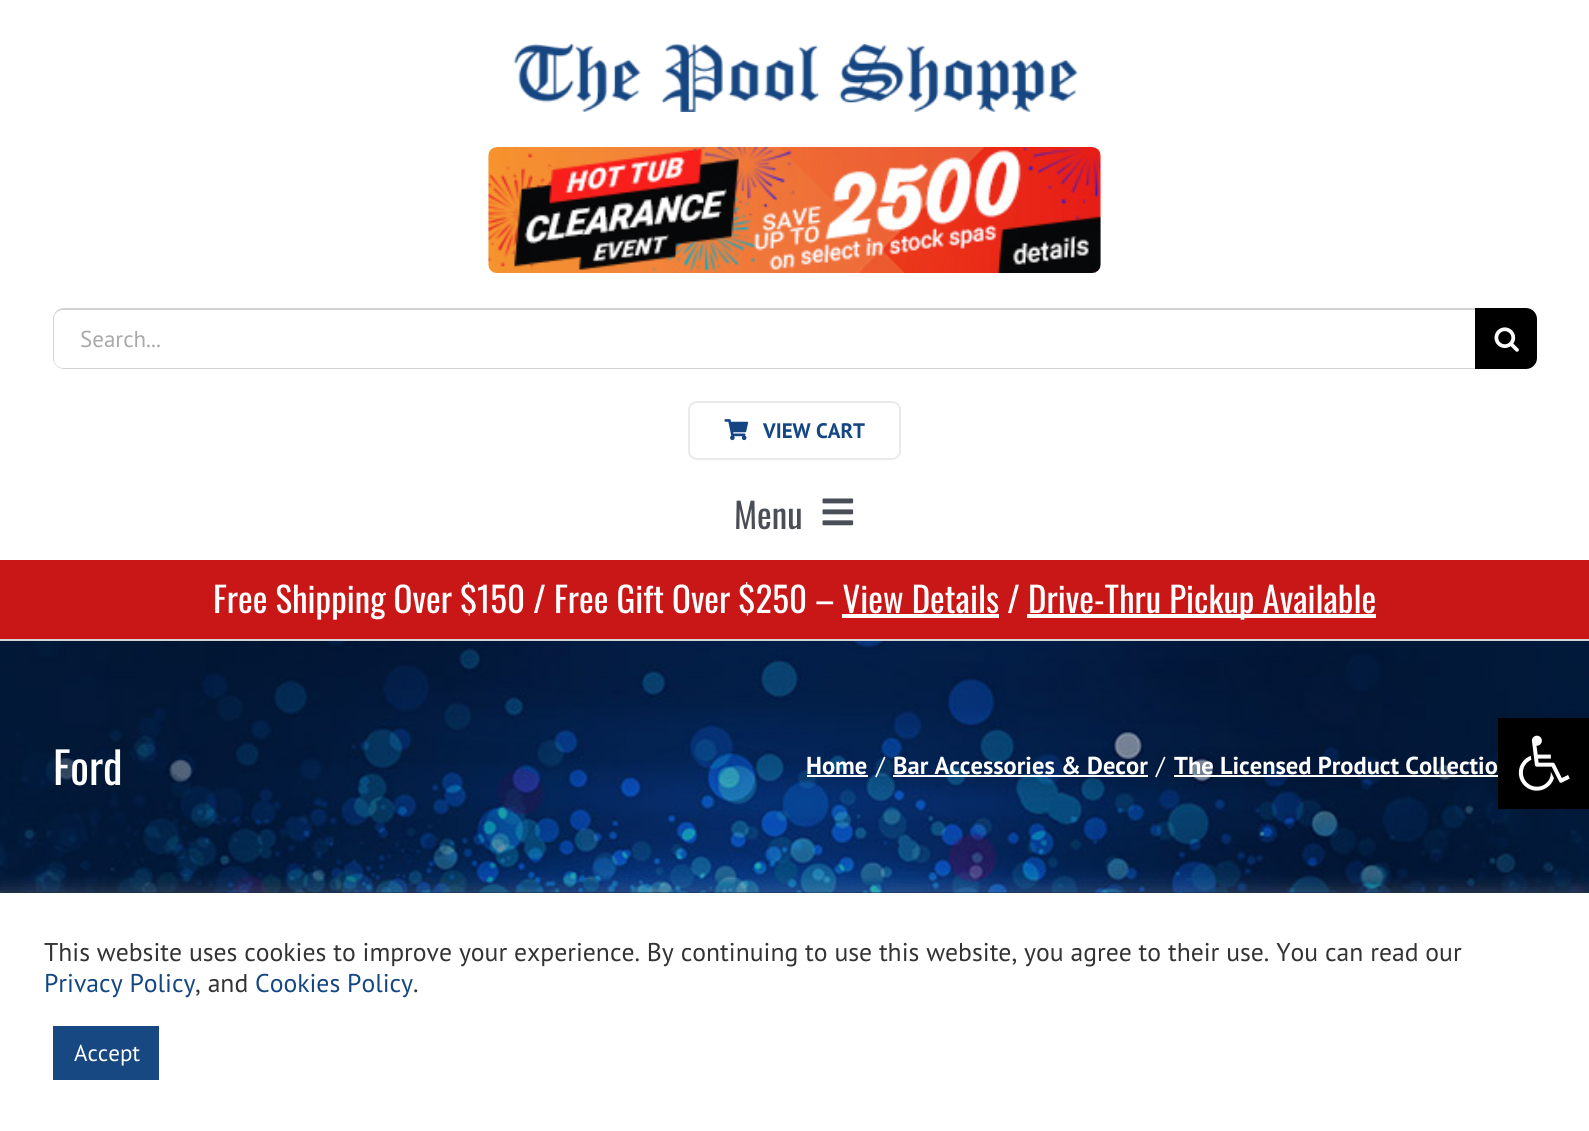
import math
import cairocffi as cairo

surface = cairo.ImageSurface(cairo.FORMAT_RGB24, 1589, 1131)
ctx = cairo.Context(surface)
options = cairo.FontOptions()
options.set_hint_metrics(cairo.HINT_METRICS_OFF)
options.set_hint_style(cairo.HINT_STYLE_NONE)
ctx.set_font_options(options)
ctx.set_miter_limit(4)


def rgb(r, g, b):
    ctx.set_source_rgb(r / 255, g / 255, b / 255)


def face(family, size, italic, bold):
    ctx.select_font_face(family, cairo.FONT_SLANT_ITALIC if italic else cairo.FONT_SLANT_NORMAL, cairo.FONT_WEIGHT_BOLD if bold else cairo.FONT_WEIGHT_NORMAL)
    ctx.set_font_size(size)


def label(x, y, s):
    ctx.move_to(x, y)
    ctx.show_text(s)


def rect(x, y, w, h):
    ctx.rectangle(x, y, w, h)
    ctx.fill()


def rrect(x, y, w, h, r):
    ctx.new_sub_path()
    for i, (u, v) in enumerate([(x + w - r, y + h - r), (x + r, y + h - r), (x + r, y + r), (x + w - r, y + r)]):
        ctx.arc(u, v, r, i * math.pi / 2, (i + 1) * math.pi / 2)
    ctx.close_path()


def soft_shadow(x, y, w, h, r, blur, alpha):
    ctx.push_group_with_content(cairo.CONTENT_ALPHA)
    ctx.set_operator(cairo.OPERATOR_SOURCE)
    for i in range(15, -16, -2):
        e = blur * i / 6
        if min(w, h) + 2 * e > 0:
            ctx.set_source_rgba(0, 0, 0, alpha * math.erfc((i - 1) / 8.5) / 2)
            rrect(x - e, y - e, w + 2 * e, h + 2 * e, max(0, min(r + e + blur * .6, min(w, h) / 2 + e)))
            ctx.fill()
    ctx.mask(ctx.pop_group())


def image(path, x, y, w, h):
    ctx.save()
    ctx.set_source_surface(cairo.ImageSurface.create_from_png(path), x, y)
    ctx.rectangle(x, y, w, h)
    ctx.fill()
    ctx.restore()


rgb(2, 25, 55)
ctx.paint()
rgb(255, 255, 255)
rect(0, 0, 1589, 560)
image('image0.png', 513, 43, 565, 69)
image('image1.png', 488, 147, 613, 126)
rgb(210, 210, 210)
ctx.new_path()
ctx.move_to(63, 310)
ctx.line_to(1475, 310)
ctx.line_to(1475, 308)
ctx.line_to(64, 308)
ctx.curve_to(58, 308, 53, 313, 53, 319)
ctx.line_to(53, 358)
ctx.curve_to(53, 364, 58, 369, 64, 369)
ctx.line_to(1475, 369)
ctx.line_to(1475, 368)
ctx.line_to(63, 368)
ctx.curve_to(58, 368, 54, 364, 54, 359)
ctx.line_to(54, 318)
ctx.curve_to(54, 314, 58, 310, 63, 310)
ctx.close_path()
ctx.fill()
face('PT Sans', 23, 0, 0)
rgb(170, 169, 169)
label(80, 347, 'Search...')
rgb(0, 0, 0)
ctx.new_path()
ctx.move_to(1475, 308)
ctx.line_to(1526, 308)
ctx.curve_to(1532, 308, 1537, 313, 1537, 319)
ctx.line_to(1537, 358)
ctx.curve_to(1537, 364, 1532, 369, 1526, 369)
ctx.line_to(1475, 369)
ctx.close_path()
ctx.fill()
image('image2.png', 1494, 327, 25, 25)
rrect(689, 402, 211, 57, 8)
rgb(234, 234, 234)
ctx.stroke()
image('image3.png', 724, 419, 25, 22)
face('PT Sans', 21, 0, 1)
rgb(20, 70, 132)
label(763, 438, 'VIEW CART')
face('Oswald', 35, 0, 0)
rgb(74, 78, 87)
label(734, 529, 'Menu')
image('image4.png', 822, 498, 32, 28)
rgb(201, 22, 23)
rect(0, 560, 1589, 79)
rgb(255, 255, 255)
label(213, 613, 'Free Shipping Over $150 / Free Gift Over $250 – View Details /')
rect(1027, 614, 349, 4)
label(1028, 613, 'Drive-Thru Pickup Available')
rect(842, 614, 157, 4)
image('image5.png', 0, 641, 1589, 252)
rgb(212, 212, 212)
rect(0, 639, 1589, 2)
face('Oswald', 44, 0, 0)
rgb(255, 255, 255)
label(53, 785, 'Ford')
face('PT Sans', 24.5, 0, 1)
label(806, 774, 'Home')
rect(807, 775, 61, 2)
face('PT Sans', 24.5, 0, 0)
label(876, 774, '/')
face('PT Sans', 24.5, 0, 1)
label(893, 774, 'Bar Accessories & Decor')
rect(893, 775, 255, 2)
face('PT Sans', 24.5, 0, 0)
label(1156, 774, '/')
face('PT Sans', 24.5, 0, 1)
label(1174, 774, 'The Licensed Product Collectio')
rect(1174, 775, 324, 2)
rgb(0, 0, 0)
soft_shadow(1498, 718, 91, 91, 0, 9, 0.1)
rgb(0, 0, 0)
rect(1498, 718, 91, 91)
image('image6.png', 1518, 735, 52, 56)
rgb(172, 171, 171)
soft_shadow(0, 891, 1589, 240, 0, 9, 0.3)
rgb(255, 255, 255)
rect(0, 893, 1589, 238)
face('PT Sans', 25.67, 0, 0)
rgb(51, 51, 51)
label(44, 961, 'This website uses cookies to improve your experience. By continuing to use this website, you agree to their use. You can read our')
rgb(20, 70, 132)
label(44, 992, 'Privacy Policy')
rgb(51, 51, 51)
label(195, 992, ', and')
rgb(20, 70, 132)
label(255, 992, 'Cookies Policy')
rgb(51, 51, 51)
label(413, 992, '.')
rgb(24, 72, 130)
rect(53, 1026, 106, 54)
face('PT Sans', 23, 0, 0)
rgb(255, 255, 255)
label(74, 1061, 'Accept')
surface.write_to_png('render.png')
